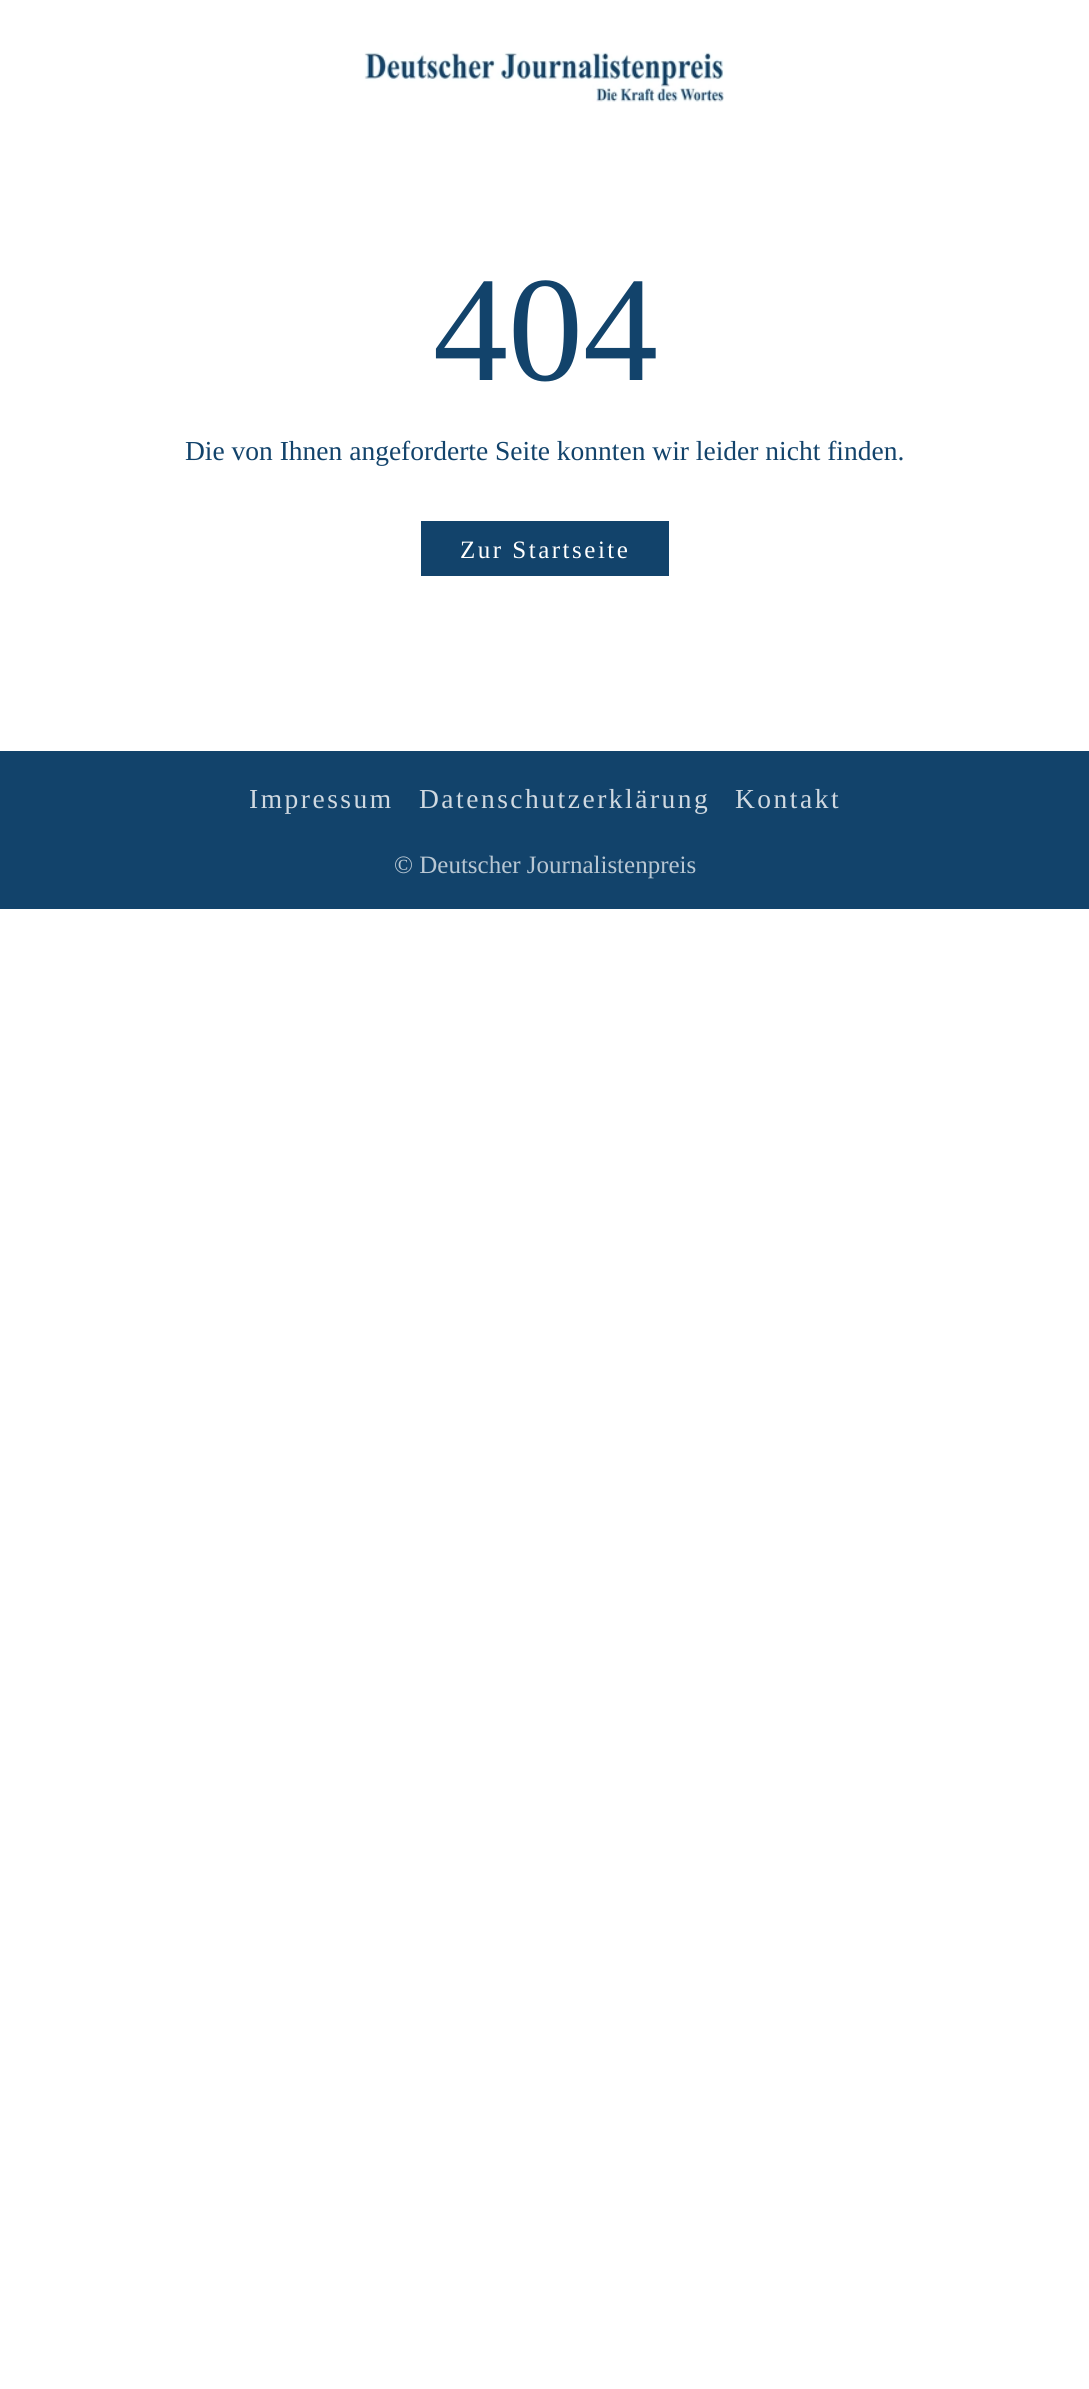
import math
import cairocffi as cairo

surface = cairo.ImageSurface(cairo.FORMAT_RGB24, 1089, 2389)
ctx = cairo.Context(surface)
options = cairo.FontOptions()
options.set_hint_metrics(cairo.HINT_METRICS_OFF)
options.set_hint_style(cairo.HINT_STYLE_NONE)
ctx.set_font_options(options)
ctx.set_miter_limit(4)


def rgb(r, g, b):
    ctx.set_source_rgb(r / 255, g / 255, b / 255)


def face(family, size, italic, bold):
    ctx.select_font_face(family, cairo.FONT_SLANT_ITALIC if italic else cairo.FONT_SLANT_NORMAL, cairo.FONT_WEIGHT_BOLD if bold else cairo.FONT_WEIGHT_NORMAL)
    ctx.set_font_size(size)


def label(x, y, s):
    ctx.move_to(x, y)
    ctx.show_text(s)


def tracked(x, y, s, letter, word):
    ctx.move_to(x, y)
    for ch in s:
        ctx.show_text(ch)
        ctx.rel_move_to(letter + word * (ch == ' '), 0)


def rect(x, y, w, h):
    ctx.rectangle(x, y, w, h)
    ctx.fill()


def image(path, x, y, w, h):
    ctx.save()
    ctx.set_source_surface(cairo.ImageSurface.create_from_png(path), x, y)
    ctx.rectangle(x, y, w, h)
    ctx.fill()
    ctx.restore()


rgb(255, 255, 255)
ctx.paint()
image('image0.png', 364, 52, 360, 50)
face('Liberation Serif', 150, 0, 0)
rgb(18, 67, 107)
label(433, 380, '404')
face('Liberation Serif', 27.5, 0, 0)
label(185, 460, 'Die von Ihnen angeforderte Seite konnten wir leider nicht finden.')
rect(421, 521, 248, 55)
face('Liberation Serif', 25, 0, 0)
rgb(255, 255, 255)
tracked(460, 558, 'Zur Startseite', 2.5, 0)
rgb(18, 67, 107)
rect(0, 751, 1089, 158)
face('Liberation Serif', 27.5, 0, 0)
rgb(208, 217, 225)
tracked(249, 808, 'Impressum', 2.5, 0)
tracked(419, 808, 'Datenschutzerklärung', 2.5, 0)
tracked(735, 808, 'Kontakt', 2.5, 0)
face('Liberation Serif', 25, 0, 0)
rgb(184, 199, 211)
label(394, 873, '© Deutscher Journalistenpreis')
surface.write_to_png('render.png')
